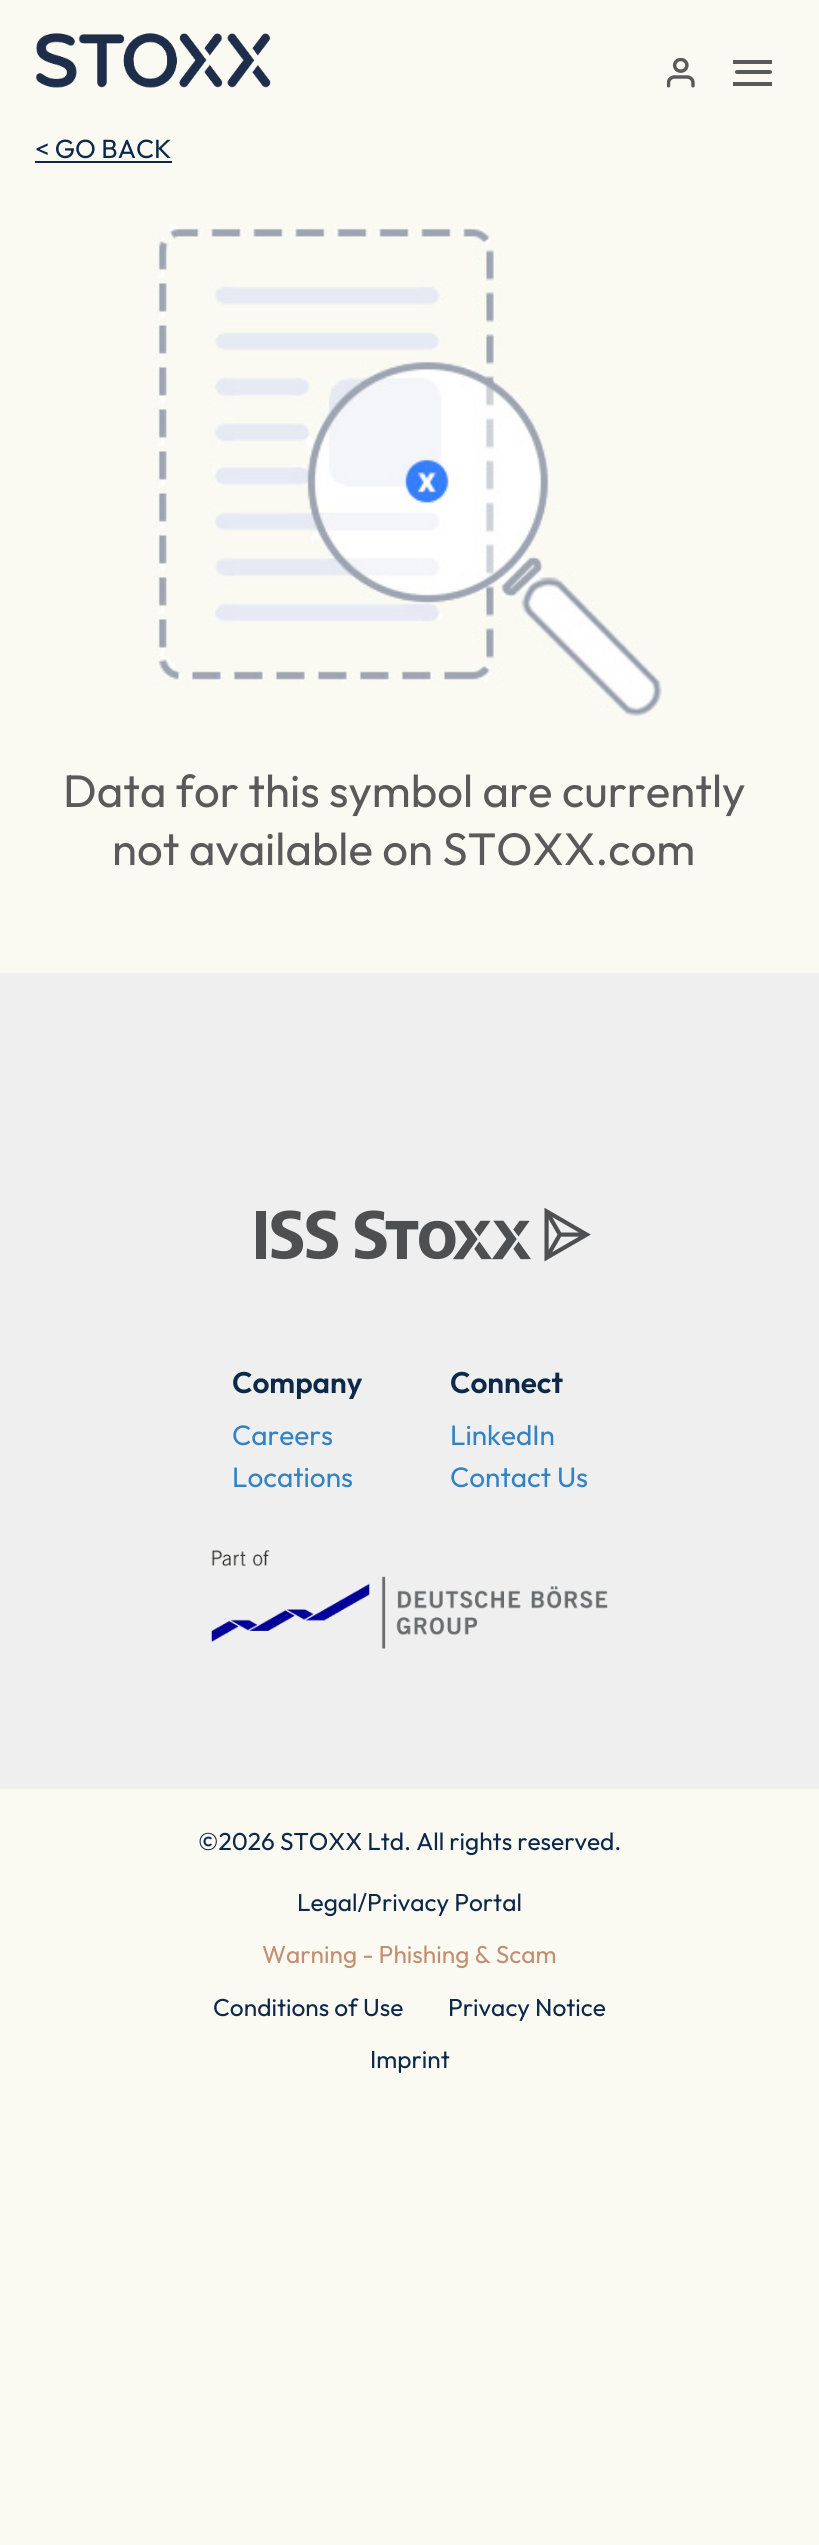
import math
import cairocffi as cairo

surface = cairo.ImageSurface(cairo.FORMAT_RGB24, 819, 2545)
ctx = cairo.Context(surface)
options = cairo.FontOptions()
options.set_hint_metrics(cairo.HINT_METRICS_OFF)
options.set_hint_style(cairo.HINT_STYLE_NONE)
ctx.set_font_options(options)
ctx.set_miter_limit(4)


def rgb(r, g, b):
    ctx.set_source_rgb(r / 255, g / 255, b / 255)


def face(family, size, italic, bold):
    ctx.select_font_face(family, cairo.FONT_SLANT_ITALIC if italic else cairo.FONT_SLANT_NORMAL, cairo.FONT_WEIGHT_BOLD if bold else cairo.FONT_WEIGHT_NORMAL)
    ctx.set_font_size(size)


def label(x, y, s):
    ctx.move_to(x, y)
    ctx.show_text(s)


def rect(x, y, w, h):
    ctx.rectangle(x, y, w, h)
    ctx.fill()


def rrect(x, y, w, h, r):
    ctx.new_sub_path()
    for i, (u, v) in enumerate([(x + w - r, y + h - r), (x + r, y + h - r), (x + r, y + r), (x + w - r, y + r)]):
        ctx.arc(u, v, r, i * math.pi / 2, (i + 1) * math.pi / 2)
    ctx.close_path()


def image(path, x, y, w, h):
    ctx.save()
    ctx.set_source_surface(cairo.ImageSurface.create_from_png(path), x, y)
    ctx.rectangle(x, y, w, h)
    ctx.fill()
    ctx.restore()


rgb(250, 250, 242)
ctx.paint()
image('image0.png', 35, 33, 236, 55)
image('image1.png', 667, 58, 28, 30)
rgb(90, 90, 90)
rect(733, 60, 39, 4)
rect(733, 82, 39, 4)
rrect(735, 70, 37, 4, 2)
ctx.fill()
face('Outfit', 26.25, 0, 0)
rgb(13, 41, 74)
label(35, 158, '< GO BACK')
rect(35, 161, 137, 2)
image('image2.png', 153, 223, 510, 498)
face('Outfit', 45.5, 0, 0)
rgb(90, 90, 90)
label(63, 807, 'Data for this symbol are currently')
label(112, 865, 'not available on STOXX.com')
rgb(239, 239, 239)
rect(0, 973, 819, 816)
image('image3.png', 256, 1207, 335, 55)
face('Outfit SemiBold', 29.75, 0, 0)
rgb(13, 41, 74)
label(232, 1393, 'Company')
face('Outfit', 28, 0, 0)
rgb(51, 130, 194)
label(232, 1445, 'Careers')
label(232, 1487, 'Locations')
face('Outfit SemiBold', 29.75, 0, 0)
rgb(13, 41, 74)
label(450, 1393, 'Connect')
face('Outfit', 28, 0, 0)
rgb(51, 130, 194)
label(450, 1445, 'LinkedIn')
label(450, 1487, 'Contact Us')
image('image4.png', 211, 1550, 397, 99)
face('Outfit', 24.5, 0, 0)
rgb(13, 41, 74)
label(198, 1850, '©2026 STOXX Ltd. All rights reserved.')
label(297, 1911, 'Legal/Privacy Portal')
rgb(194, 143, 112)
label(262, 1963, 'Warning - Phishing & Scam')
rgb(13, 41, 74)
label(213, 2016, 'Conditions of Use')
label(448, 2016, 'Privacy Notice')
label(370, 2068, 'Imprint')
surface.write_to_png('render.png')
